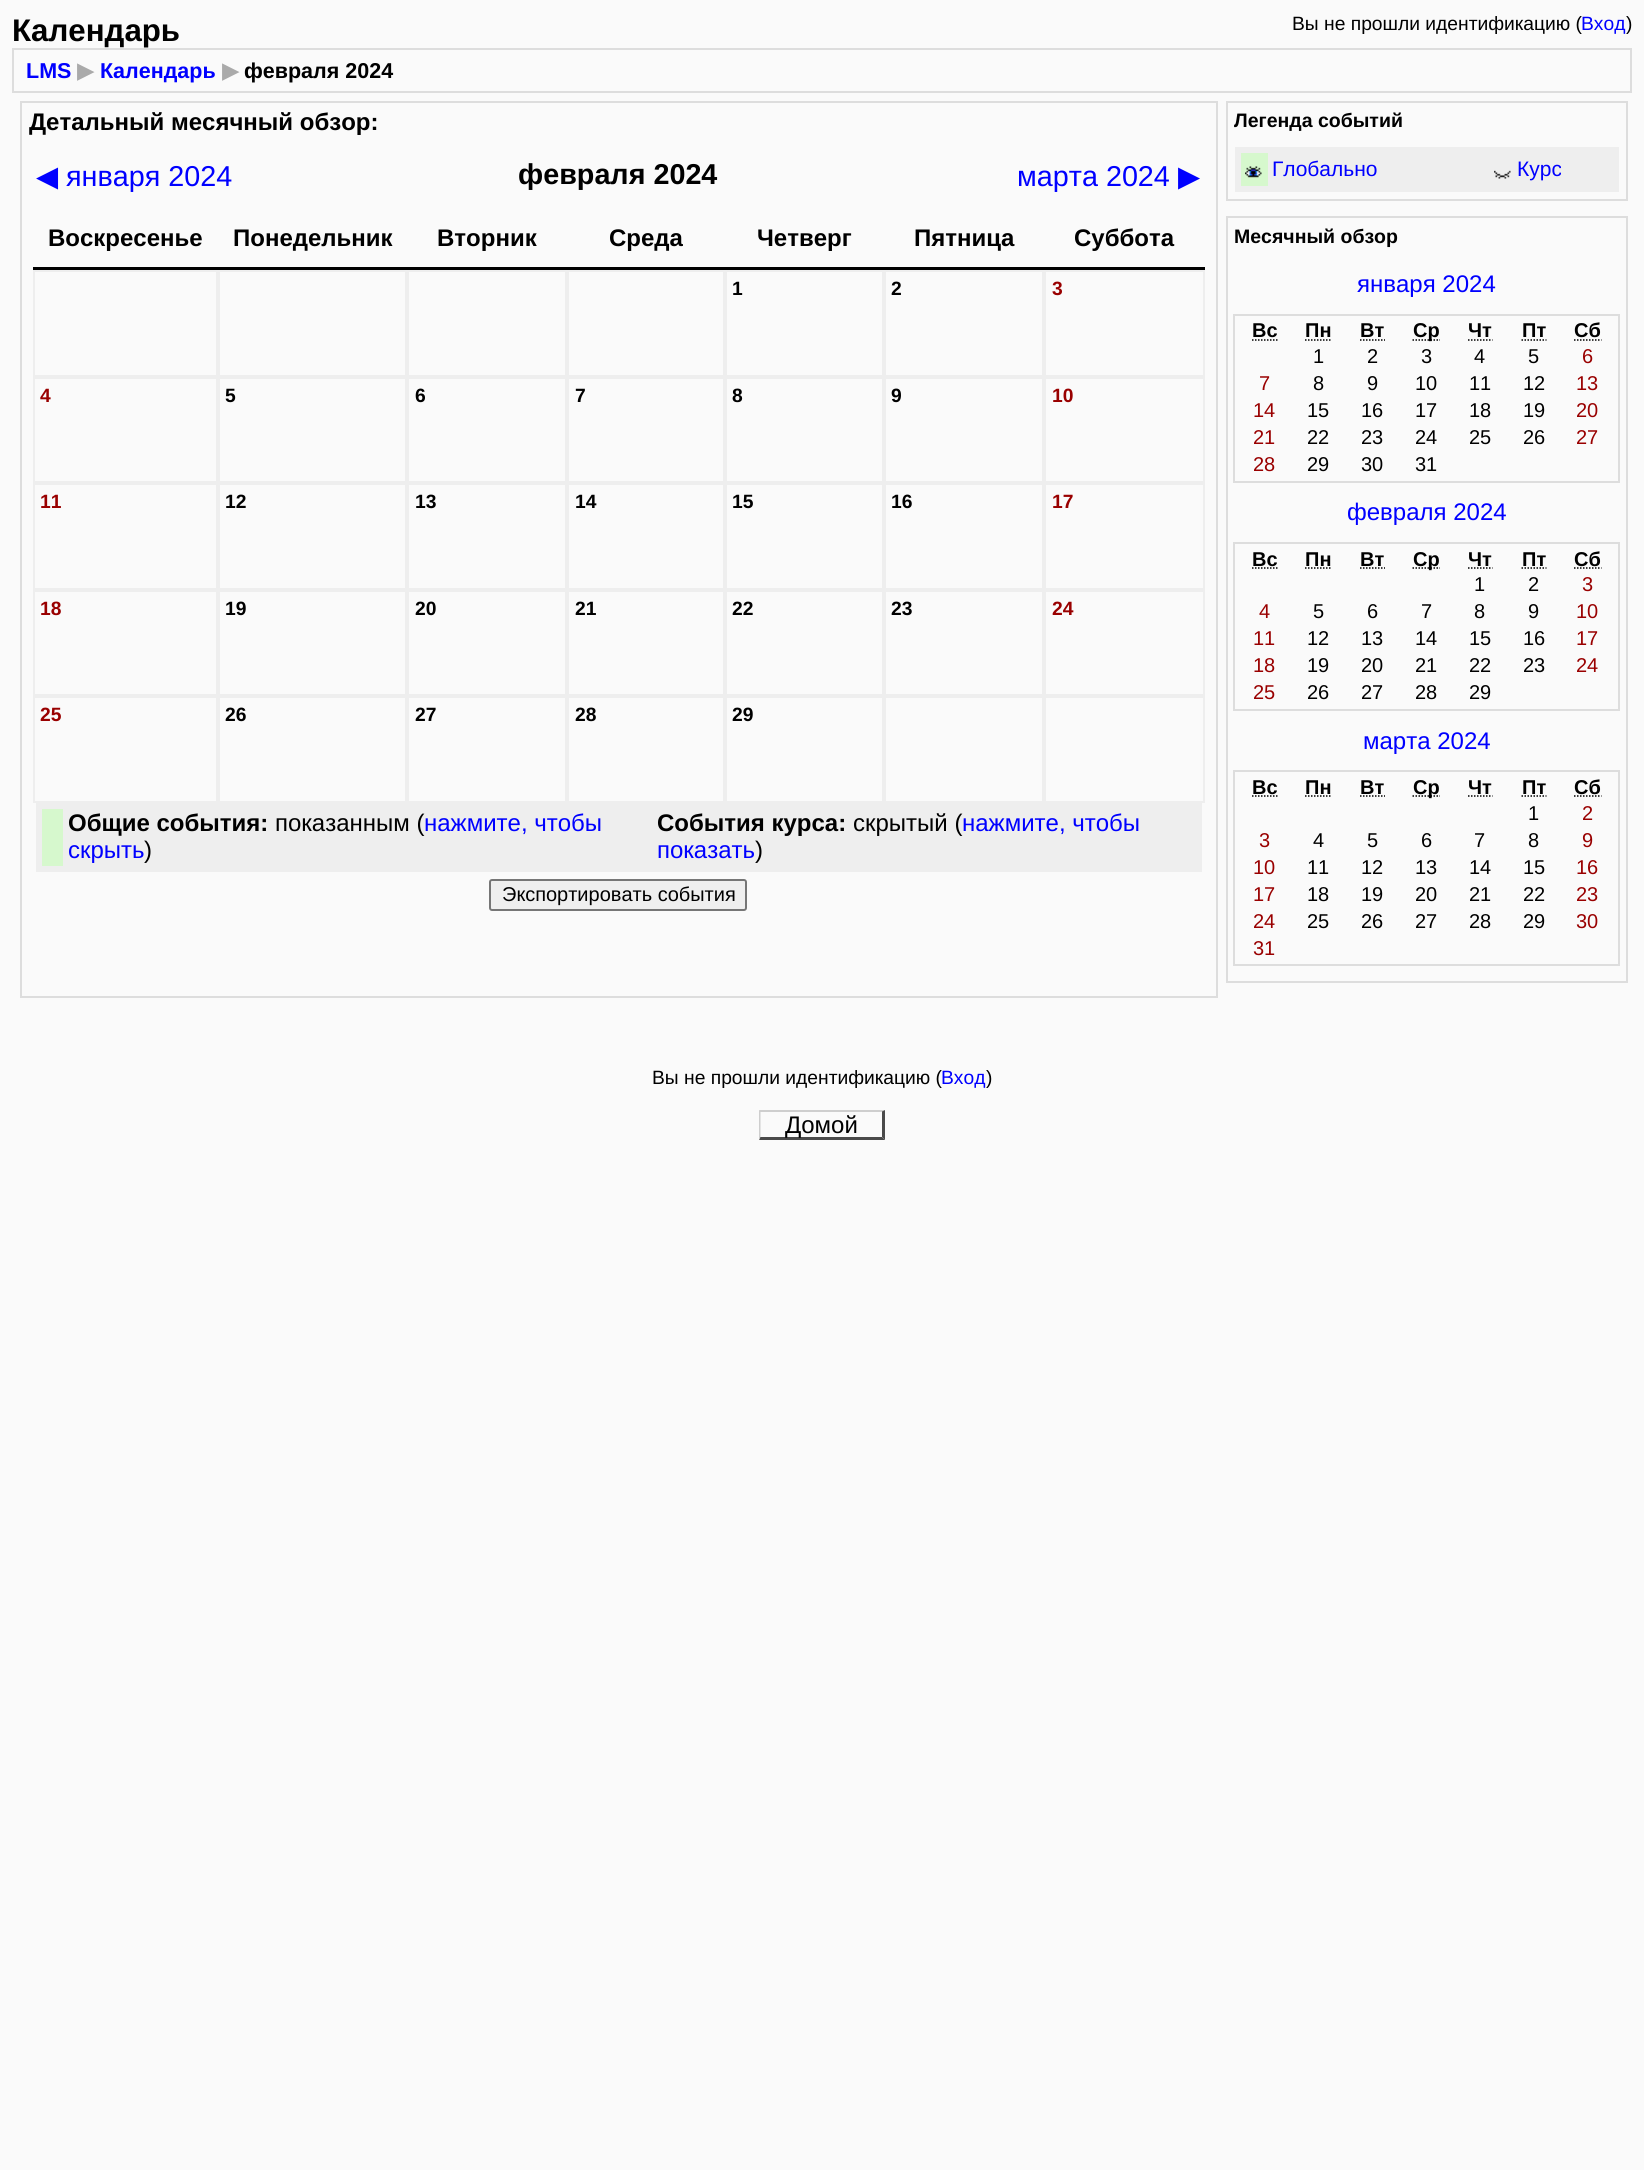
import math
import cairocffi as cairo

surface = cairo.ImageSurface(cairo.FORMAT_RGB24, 1644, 2170)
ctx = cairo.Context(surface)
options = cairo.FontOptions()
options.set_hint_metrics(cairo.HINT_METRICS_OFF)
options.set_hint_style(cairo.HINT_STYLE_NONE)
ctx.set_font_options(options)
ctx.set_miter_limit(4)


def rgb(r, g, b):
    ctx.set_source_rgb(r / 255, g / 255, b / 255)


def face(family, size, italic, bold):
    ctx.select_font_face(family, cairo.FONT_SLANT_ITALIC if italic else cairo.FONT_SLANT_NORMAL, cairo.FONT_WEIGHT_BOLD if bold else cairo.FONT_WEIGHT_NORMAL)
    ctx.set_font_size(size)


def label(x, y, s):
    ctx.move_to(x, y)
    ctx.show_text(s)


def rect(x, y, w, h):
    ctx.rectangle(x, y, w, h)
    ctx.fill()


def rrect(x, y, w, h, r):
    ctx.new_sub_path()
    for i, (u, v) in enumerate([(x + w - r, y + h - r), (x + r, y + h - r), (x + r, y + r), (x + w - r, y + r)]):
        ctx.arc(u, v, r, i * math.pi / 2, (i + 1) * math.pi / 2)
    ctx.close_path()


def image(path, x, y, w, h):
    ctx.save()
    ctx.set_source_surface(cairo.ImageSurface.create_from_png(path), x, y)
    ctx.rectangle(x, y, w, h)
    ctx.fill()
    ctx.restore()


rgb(250, 250, 250)
ctx.paint()
face('Liberation Sans', 31.25, 0, 1)
rgb(0, 0, 0)
label(12, 41, 'Календарь')
face('Liberation Sans', 19.25, 0, 0)
label(1292, 30, 'Вы не прошли идентификацию (')
rgb(0, 0, 255)
label(1581, 30, 'Вход')
rgb(0, 0, 0)
label(1626, 30, ')')
ctx.rectangle(13, 49, 1618, 43)
rgb(221, 221, 221)
ctx.stroke()
face('Liberation Sans', 21.5, 0, 1)
rgb(0, 0, 255)
label(26, 78, 'LMS')
face('DejaVu Sans', 21.5, 0, 1)
rgb(170, 170, 170)
label(77, 78, '▶')
face('Liberation Sans', 21.5, 0, 1)
rgb(0, 0, 255)
label(100, 78, 'Календарь')
face('DejaVu Sans', 21.5, 0, 1)
rgb(170, 170, 170)
label(222, 78, '▶')
face('Liberation Sans', 21.5, 0, 1)
rgb(0, 0, 0)
label(244, 78, 'февраля 2024')
ctx.rectangle(21, 102, 1196, 895)
rgb(221, 221, 221)
ctx.stroke()
face('Liberation Sans', 24, 0, 1)
rgb(0, 0, 0)
label(29, 130, 'Детальный месячный обзор:')
face('DejaVu Sans', 28.75, 0, 0)
rgb(0, 0, 255)
label(36, 186, '◀')
face('Liberation Sans', 28.75, 0, 0)
label(66, 186, 'января 2024')
face('Liberation Sans', 28.75, 0, 1)
rgb(0, 0, 0)
label(518, 184, 'февраля 2024')
face('Liberation Sans', 28.75, 0, 0)
rgb(0, 0, 255)
label(1017, 186, 'марта 2024')
face('DejaVu Sans', 28.75, 0, 0)
label(1178, 186, '▶')
rgb(0, 0, 0)
rect(33, 267, 1172, 3)
face('Liberation Sans', 24, 0, 1)
label(48, 246, 'Воскресенье')
label(233, 246, 'Понедельник')
label(437, 246, 'Вторник')
label(609, 246, 'Среда')
label(757, 246, 'Четверг')
label(914, 246, 'Пятница')
label(1074, 246, 'Суббота')
ctx.rectangle(34, 271, 183, 105)
rgb(238, 238, 238)
ctx.stroke()
ctx.rectangle(219, 271, 187, 105)
ctx.stroke()
ctx.rectangle(408, 271, 158, 105)
ctx.stroke()
ctx.rectangle(568, 271, 156, 105)
ctx.stroke()
ctx.rectangle(726, 271, 157, 105)
ctx.stroke()
face('Liberation Sans', 19.25, 0, 1)
rgb(0, 0, 0)
label(732, 295, '1')
ctx.rectangle(885, 271, 158, 105)
rgb(238, 238, 238)
ctx.stroke()
rgb(0, 0, 0)
label(891, 295, '2')
ctx.rectangle(1045, 271, 159, 105)
rgb(238, 238, 238)
ctx.stroke()
rgb(153, 0, 0)
label(1052, 295, '3')
ctx.rectangle(34, 378, 183, 104)
rgb(238, 238, 238)
ctx.stroke()
rgb(153, 0, 0)
label(40, 402, '4')
ctx.rectangle(219, 378, 187, 104)
rgb(238, 238, 238)
ctx.stroke()
rgb(0, 0, 0)
label(225, 402, '5')
ctx.rectangle(408, 378, 158, 104)
rgb(238, 238, 238)
ctx.stroke()
rgb(0, 0, 0)
label(415, 402, '6')
ctx.rectangle(568, 378, 156, 104)
rgb(238, 238, 238)
ctx.stroke()
rgb(0, 0, 0)
label(575, 402, '7')
ctx.rectangle(726, 378, 157, 104)
rgb(238, 238, 238)
ctx.stroke()
rgb(0, 0, 0)
label(732, 402, '8')
ctx.rectangle(885, 378, 158, 104)
rgb(238, 238, 238)
ctx.stroke()
rgb(0, 0, 0)
label(891, 402, '9')
ctx.rectangle(1045, 378, 159, 104)
rgb(238, 238, 238)
ctx.stroke()
rgb(153, 0, 0)
label(1052, 402, '10')
ctx.rectangle(34, 484, 183, 105)
rgb(238, 238, 238)
ctx.stroke()
rgb(153, 0, 0)
label(40, 508, '11')
ctx.rectangle(219, 484, 187, 105)
rgb(238, 238, 238)
ctx.stroke()
rgb(0, 0, 0)
label(225, 508, '12')
ctx.rectangle(408, 484, 158, 105)
rgb(238, 238, 238)
ctx.stroke()
rgb(0, 0, 0)
label(415, 508, '13')
ctx.rectangle(568, 484, 156, 105)
rgb(238, 238, 238)
ctx.stroke()
rgb(0, 0, 0)
label(575, 508, '14')
ctx.rectangle(726, 484, 157, 105)
rgb(238, 238, 238)
ctx.stroke()
rgb(0, 0, 0)
label(732, 508, '15')
ctx.rectangle(885, 484, 158, 105)
rgb(238, 238, 238)
ctx.stroke()
rgb(0, 0, 0)
label(891, 508, '16')
ctx.rectangle(1045, 484, 159, 105)
rgb(238, 238, 238)
ctx.stroke()
rgb(153, 0, 0)
label(1052, 508, '17')
ctx.rectangle(34, 591, 183, 104)
rgb(238, 238, 238)
ctx.stroke()
rgb(153, 0, 0)
label(40, 615, '18')
ctx.rectangle(219, 591, 187, 104)
rgb(238, 238, 238)
ctx.stroke()
rgb(0, 0, 0)
label(225, 615, '19')
ctx.rectangle(408, 591, 158, 104)
rgb(238, 238, 238)
ctx.stroke()
rgb(0, 0, 0)
label(415, 615, '20')
ctx.rectangle(568, 591, 156, 104)
rgb(238, 238, 238)
ctx.stroke()
rgb(0, 0, 0)
label(575, 615, '21')
ctx.rectangle(726, 591, 157, 104)
rgb(238, 238, 238)
ctx.stroke()
rgb(0, 0, 0)
label(732, 615, '22')
ctx.rectangle(885, 591, 158, 104)
rgb(238, 238, 238)
ctx.stroke()
rgb(0, 0, 0)
label(891, 615, '23')
ctx.rectangle(1045, 591, 159, 104)
rgb(238, 238, 238)
ctx.stroke()
rgb(153, 0, 0)
label(1052, 615, '24')
ctx.rectangle(34, 697, 183, 105)
rgb(238, 238, 238)
ctx.stroke()
rgb(153, 0, 0)
label(40, 721, '25')
ctx.rectangle(219, 697, 187, 105)
rgb(238, 238, 238)
ctx.stroke()
rgb(0, 0, 0)
label(225, 721, '26')
ctx.rectangle(408, 697, 158, 105)
rgb(238, 238, 238)
ctx.stroke()
rgb(0, 0, 0)
label(415, 721, '27')
ctx.rectangle(568, 697, 156, 105)
rgb(238, 238, 238)
ctx.stroke()
rgb(0, 0, 0)
label(575, 721, '28')
ctx.rectangle(726, 697, 157, 105)
rgb(238, 238, 238)
ctx.stroke()
rgb(0, 0, 0)
label(732, 721, '29')
ctx.rectangle(885, 697, 158, 105)
rgb(238, 238, 238)
ctx.stroke()
ctx.rectangle(1045, 697, 159, 105)
ctx.stroke()
rect(36, 803, 1166, 69)
rgb(214, 248, 205)
rect(42, 809, 21, 57)
face('Liberation Sans', 24, 0, 1)
rgb(0, 0, 0)
label(68, 831, 'Общие события:')
face('Liberation Sans', 24, 0, 0)
label(275, 831, 'показанным (')
rgb(0, 0, 255)
label(424, 831, 'нажмите, чтобы')
label(68, 858, 'скрыть')
rgb(0, 0, 0)
label(144, 858, ')')
face('Liberation Sans', 24, 0, 1)
label(657, 831, 'События курса:')
face('Liberation Sans', 24, 0, 0)
label(853, 831, 'скрытый (')
rgb(0, 0, 255)
label(962, 831, 'нажмите, чтобы')
label(657, 858, 'показать')
rgb(0, 0, 0)
label(755, 858, ')')
rgb(239, 239, 239)
rrect(490, 880, 256, 30, 2)
ctx.fill_preserve()
rgb(118, 118, 118)
ctx.stroke()
face('Liberation Sans', 20, 0, 0)
rgb(0, 0, 0)
label(502, 901, 'Экспортировать события')
ctx.rectangle(1227, 102, 400, 98)
rgb(221, 221, 221)
ctx.stroke()
face('Liberation Sans', 19.5, 0, 1)
rgb(0, 0, 0)
label(1234, 127, 'Легенда событий')
rgb(238, 238, 238)
rect(1235, 147, 384, 45)
rgb(214, 248, 205)
rect(1241, 153, 27, 33)
image('image0.png', 1245, 166, 17, 12)
face('Liberation Sans', 21, 0, 0)
rgb(0, 0, 255)
label(1272, 176, 'Глобально')
image('image1.png', 1494, 170, 17, 9)
label(1517, 176, 'Курс')
ctx.rectangle(1227, 217, 400, 765)
rgb(221, 221, 221)
ctx.stroke()
face('Liberation Sans', 19.5, 0, 1)
rgb(0, 0, 0)
label(1234, 243, 'Месячный обзор')
face('Liberation Sans', 24, 0, 0)
rgb(0, 0, 255)
label(1357, 292, 'января 2024')
ctx.rectangle(1234, 315, 385, 167)
rgb(221, 221, 221)
ctx.stroke()
face('Liberation Sans', 20, 0, 1)
rgb(0, 0, 0)
label(1252, 337, 'Вс')
ctx.new_path()
ctx.move_to(1252, 340)
ctx.line_to(1278, 340)
ctx.set_line_width(1.5)
ctx.set_dash([1.5, 1.5])
ctx.stroke()
label(1305, 337, 'Пн')
ctx.new_path()
ctx.move_to(1305, 340)
ctx.line_to(1332, 340)
ctx.stroke()
label(1360, 337, 'Вт')
ctx.new_path()
ctx.move_to(1360, 340)
ctx.line_to(1385, 340)
ctx.stroke()
ctx.new_path()
ctx.move_to(1412.5, 340)
ctx.line_to(1440, 340)
ctx.stroke()
label(1413, 337, 'Ср')
label(1468, 337, 'Чт')
ctx.new_path()
ctx.move_to(1468, 340)
ctx.line_to(1492.5, 340)
ctx.stroke()
label(1522, 337, 'Пт')
ctx.new_path()
ctx.move_to(1521.5, 340)
ctx.line_to(1546.5, 340)
ctx.stroke()
label(1574, 337, 'Сб')
ctx.new_path()
ctx.move_to(1574, 340)
ctx.line_to(1601.5, 340)
ctx.stroke()
face('Liberation Sans', 20, 0, 0)
label(1313, 363, '1')
label(1367, 363, '2')
label(1421, 363, '3')
label(1474, 363, '4')
label(1528, 363, '5')
rgb(153, 0, 0)
label(1582, 363, '6')
label(1259, 390, '7')
rgb(0, 0, 0)
label(1313, 390, '8')
label(1367, 390, '9')
label(1415, 390, '10')
label(1469, 390, '11')
label(1523, 390, '12')
rgb(153, 0, 0)
label(1576, 390, '13')
label(1253, 417, '14')
rgb(0, 0, 0)
label(1307, 417, '15')
label(1361, 417, '16')
label(1415, 417, '17')
label(1469, 417, '18')
label(1523, 417, '19')
rgb(153, 0, 0)
label(1576, 417, '20')
label(1253, 444, '21')
rgb(0, 0, 0)
label(1307, 444, '22')
label(1361, 444, '23')
label(1415, 444, '24')
label(1469, 444, '25')
label(1523, 444, '26')
rgb(153, 0, 0)
label(1576, 444, '27')
label(1253, 471, '28')
rgb(0, 0, 0)
label(1307, 471, '29')
label(1361, 471, '30')
label(1415, 471, '31')
face('Liberation Sans', 24, 0, 0)
rgb(0, 0, 255)
label(1347, 520, 'февраля 2024')
ctx.rectangle(1234, 543, 385, 167)
rgb(221, 221, 221)
ctx.set_line_width(2)
ctx.set_dash([])
ctx.stroke()
face('Liberation Sans', 20, 0, 1)
rgb(0, 0, 0)
label(1252, 566, 'Вс')
ctx.new_path()
ctx.move_to(1252, 568)
ctx.line_to(1278, 568)
ctx.set_line_width(1.5)
ctx.set_dash([1.5, 1.5])
ctx.stroke()
label(1305, 566, 'Пн')
ctx.new_path()
ctx.move_to(1305, 568)
ctx.line_to(1332, 568)
ctx.stroke()
label(1360, 566, 'Вт')
ctx.new_path()
ctx.move_to(1360, 568)
ctx.line_to(1385, 568)
ctx.stroke()
ctx.new_path()
ctx.move_to(1412.5, 568)
ctx.line_to(1440, 568)
ctx.stroke()
label(1413, 566, 'Ср')
label(1468, 566, 'Чт')
ctx.new_path()
ctx.move_to(1468, 568)
ctx.line_to(1492.5, 568)
ctx.stroke()
label(1522, 566, 'Пт')
ctx.new_path()
ctx.move_to(1521.5, 568)
ctx.line_to(1546.5, 568)
ctx.stroke()
label(1574, 566, 'Сб')
ctx.new_path()
ctx.move_to(1574, 568)
ctx.line_to(1601.5, 568)
ctx.stroke()
face('Liberation Sans', 20, 0, 0)
label(1474, 591, '1')
label(1528, 591, '2')
rgb(153, 0, 0)
label(1582, 591, '3')
label(1259, 618, '4')
rgb(0, 0, 0)
label(1313, 618, '5')
label(1367, 618, '6')
label(1421, 618, '7')
label(1474, 618, '8')
label(1528, 618, '9')
rgb(153, 0, 0)
label(1576, 618, '10')
label(1253, 645, '11')
rgb(0, 0, 0)
label(1307, 645, '12')
label(1361, 645, '13')
label(1415, 645, '14')
label(1469, 645, '15')
label(1523, 645, '16')
rgb(153, 0, 0)
label(1576, 645, '17')
label(1253, 672, '18')
rgb(0, 0, 0)
label(1307, 672, '19')
label(1361, 672, '20')
label(1415, 672, '21')
label(1469, 672, '22')
label(1523, 672, '23')
rgb(153, 0, 0)
label(1576, 672, '24')
label(1253, 699, '25')
rgb(0, 0, 0)
label(1307, 699, '26')
label(1361, 699, '27')
label(1415, 699, '28')
label(1469, 699, '29')
face('Liberation Sans', 24, 0, 0)
rgb(0, 0, 255)
label(1363, 749, 'марта 2024')
ctx.rectangle(1234, 771, 385, 194)
rgb(221, 221, 221)
ctx.set_line_width(2)
ctx.set_dash([])
ctx.stroke()
face('Liberation Sans', 20, 0, 1)
rgb(0, 0, 0)
label(1252, 794, 'Вс')
ctx.new_path()
ctx.move_to(1252, 796)
ctx.line_to(1278, 796)
ctx.set_line_width(1.5)
ctx.set_dash([1.5, 1.5])
ctx.stroke()
label(1305, 794, 'Пн')
ctx.new_path()
ctx.move_to(1305, 796)
ctx.line_to(1332, 796)
ctx.stroke()
label(1360, 794, 'Вт')
ctx.new_path()
ctx.move_to(1360, 796)
ctx.line_to(1385, 796)
ctx.stroke()
ctx.new_path()
ctx.move_to(1412.5, 796)
ctx.line_to(1440, 796)
ctx.stroke()
label(1413, 794, 'Ср')
label(1468, 794, 'Чт')
ctx.new_path()
ctx.move_to(1468, 796)
ctx.line_to(1492.5, 796)
ctx.stroke()
label(1522, 794, 'Пт')
ctx.new_path()
ctx.move_to(1521.5, 796)
ctx.line_to(1546.5, 796)
ctx.stroke()
label(1574, 794, 'Сб')
ctx.new_path()
ctx.move_to(1574, 796)
ctx.line_to(1601.5, 796)
ctx.stroke()
face('Liberation Sans', 20, 0, 0)
label(1528, 820, '1')
rgb(153, 0, 0)
label(1582, 820, '2')
label(1259, 847, '3')
rgb(0, 0, 0)
label(1313, 847, '4')
label(1367, 847, '5')
label(1421, 847, '6')
label(1474, 847, '7')
label(1528, 847, '8')
rgb(153, 0, 0)
label(1582, 847, '9')
label(1253, 874, '10')
rgb(0, 0, 0)
label(1307, 874, '11')
label(1361, 874, '12')
label(1415, 874, '13')
label(1469, 874, '14')
label(1523, 874, '15')
rgb(153, 0, 0)
label(1576, 874, '16')
label(1253, 901, '17')
rgb(0, 0, 0)
label(1307, 901, '18')
label(1361, 901, '19')
label(1415, 901, '20')
label(1469, 901, '21')
label(1523, 901, '22')
rgb(153, 0, 0)
label(1576, 901, '23')
label(1253, 928, '24')
rgb(0, 0, 0)
label(1307, 928, '25')
label(1361, 928, '26')
label(1415, 928, '27')
label(1469, 928, '28')
label(1523, 928, '29')
rgb(153, 0, 0)
label(1576, 928, '30')
label(1253, 955, '31')
face('Liberation Sans', 19.25, 0, 0)
rgb(0, 0, 0)
label(652, 1084, 'Вы не прошли идентификацию (')
rgb(0, 0, 255)
label(941, 1084, 'Вход')
rgb(0, 0, 0)
label(986, 1084, ')')
rgb(206, 206, 206)
ctx.new_path()
ctx.move_to(759, 1110)
ctx.line_to(885, 1110)
ctx.line_to(882, 1112)
ctx.line_to(760, 1112)
ctx.close_path()
ctx.fill()
rgb(74, 74, 74)
ctx.new_path()
ctx.move_to(885, 1110)
ctx.line_to(885, 1140)
ctx.line_to(882, 1137)
ctx.line_to(882, 1111.5)
ctx.close_path()
ctx.fill()
ctx.new_path()
ctx.move_to(885, 1140)
ctx.line_to(759, 1140)
ctx.line_to(760, 1137)
ctx.line_to(882, 1137)
ctx.close_path()
ctx.fill()
face('Liberation Sans', 24, 0, 0)
rgb(0, 0, 0)
label(785, 1133, 'Домой')
rgb(206, 206, 206)
ctx.new_path()
ctx.move_to(759, 1140)
ctx.line_to(759, 1110)
ctx.line_to(760.5, 1111.5)
ctx.line_to(760.5, 1137)
ctx.close_path()
ctx.fill()
surface.write_to_png('render.png')
